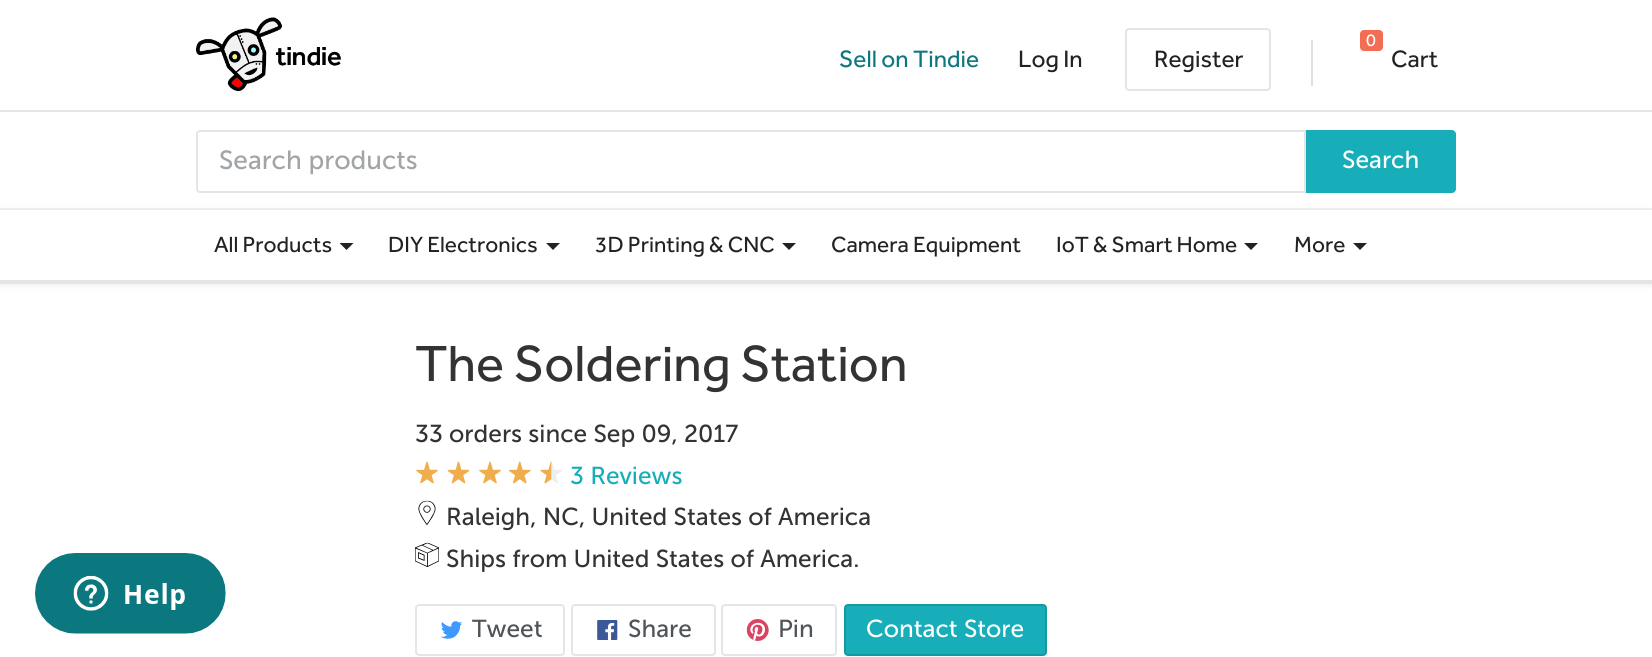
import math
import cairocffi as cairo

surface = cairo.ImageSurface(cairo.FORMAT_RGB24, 1652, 657)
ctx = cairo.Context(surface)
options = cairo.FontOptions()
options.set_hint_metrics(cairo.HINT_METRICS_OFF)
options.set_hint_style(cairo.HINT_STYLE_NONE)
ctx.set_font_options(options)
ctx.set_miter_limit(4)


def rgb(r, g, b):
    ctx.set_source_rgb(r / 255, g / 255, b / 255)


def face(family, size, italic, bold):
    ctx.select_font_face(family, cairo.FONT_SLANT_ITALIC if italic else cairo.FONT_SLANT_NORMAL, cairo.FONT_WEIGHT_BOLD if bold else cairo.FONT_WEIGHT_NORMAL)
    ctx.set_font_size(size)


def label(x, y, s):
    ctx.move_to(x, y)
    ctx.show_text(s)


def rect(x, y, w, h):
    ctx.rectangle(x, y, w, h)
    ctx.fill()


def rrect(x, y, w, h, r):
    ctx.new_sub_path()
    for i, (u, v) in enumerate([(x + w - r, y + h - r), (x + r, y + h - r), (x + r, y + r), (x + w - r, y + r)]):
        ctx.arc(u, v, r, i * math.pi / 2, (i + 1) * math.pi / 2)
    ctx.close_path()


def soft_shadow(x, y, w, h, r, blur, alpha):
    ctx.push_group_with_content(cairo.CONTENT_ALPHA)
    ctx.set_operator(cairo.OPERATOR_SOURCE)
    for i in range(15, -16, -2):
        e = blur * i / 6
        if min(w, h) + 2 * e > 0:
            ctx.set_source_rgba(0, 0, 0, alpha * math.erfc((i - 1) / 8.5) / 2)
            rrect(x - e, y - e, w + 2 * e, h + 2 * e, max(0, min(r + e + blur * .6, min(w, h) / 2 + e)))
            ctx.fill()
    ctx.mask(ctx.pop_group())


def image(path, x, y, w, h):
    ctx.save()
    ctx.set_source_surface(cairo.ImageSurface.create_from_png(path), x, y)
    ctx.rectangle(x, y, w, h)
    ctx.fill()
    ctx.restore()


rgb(255, 255, 255)
ctx.paint()
rgb(228, 229, 231)
rect(0, 110, 1652, 2)
image('image0.png', 196, 17, 146, 74)
face('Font', 24.5, 0, 0)
rgb(11, 119, 127)
label(839, 67, 'Sell on Tindie')
rgb(34, 34, 34)
label(1018, 67, 'Log In')
rrect(1126, 29, 144, 61, 3)
rgb(228, 229, 231)
ctx.stroke()
rgb(34, 34, 34)
label(1154, 67, 'Register')
rgb(221, 223, 225)
rect(1311, 40, 2, 46)
rgb(243, 108, 84)
rrect(1360, 30, 23, 21, 4)
ctx.fill()
face('Font', 18, 0, 0)
rgb(255, 255, 255)
label(1366, 46, '0')
face('Font', 24.5, 0, 0)
rgb(34, 34, 34)
label(1391, 67, 'Cart')
ctx.new_path()
ctx.move_to(200, 131)
ctx.line_to(1305, 131)
ctx.line_to(1305, 192)
ctx.line_to(200, 192)
ctx.curve_to(198.5, 192, 197, 190.5, 197, 189)
ctx.line_to(197, 134)
ctx.curve_to(197, 132.5, 198.5, 131, 200, 131)
ctx.close_path()
rgb(228, 229, 231)
ctx.stroke()
face('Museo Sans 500', 26.25, 0, 0)
rgb(162, 165, 168)
label(219, 169, 'Search products')
rgb(23, 174, 185)
ctx.new_path()
ctx.move_to(1306, 130)
ctx.line_to(1452, 130)
ctx.curve_to(1454, 130, 1456, 132, 1456, 134)
ctx.line_to(1456, 189)
ctx.curve_to(1456, 191, 1454, 193, 1452, 193)
ctx.line_to(1306, 193)
ctx.close_path()
ctx.fill()
face('Museo Sans 500', 24.5, 0, 0)
rgb(255, 255, 255)
label(1342, 168, 'Search')
ctx.rectangle(-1, 209, 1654, 74)
rgb(242, 242, 242)
ctx.stroke()
ctx.save()
ctx.set_fill_rule(cairo.FILL_RULE_EVEN_ODD)
ctx.new_path()
ctx.move_to(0, 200)
ctx.line_to(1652, 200)
ctx.line_to(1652, 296)
ctx.line_to(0, 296)
ctx.close_path()
ctx.move_to(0, 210)
ctx.line_to(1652, 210)
ctx.line_to(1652, 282)
ctx.line_to(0, 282)
ctx.close_path()
ctx.clip()
rgb(0, 0, 0)
soft_shadow(0, 212, 1652, 72, 0, 3.5, 0.1)
ctx.restore()
rgb(228, 229, 231)
rect(0, 280, 1652, 2)
face('Font', 22.75, 0, 0)
rgb(34, 34, 34)
label(214, 252, 'All Products')
ctx.new_path()
ctx.move_to(339.5, 243)
ctx.line_to(353.5, 243)
ctx.line_to(346.5, 250)
ctx.close_path()
ctx.fill()
label(388, 252, 'DIY Electronics')
ctx.new_path()
ctx.move_to(546, 243)
ctx.line_to(560, 243)
ctx.line_to(553, 250)
ctx.close_path()
ctx.fill()
label(595, 252, '3D Printing & CNC')
ctx.new_path()
ctx.move_to(782, 243)
ctx.line_to(796, 243)
ctx.line_to(789, 250)
ctx.close_path()
ctx.fill()
label(831, 252, 'Camera Equipment')
label(1056, 252, 'IoT & Smart Home')
ctx.new_path()
ctx.move_to(1244, 243)
ctx.line_to(1258, 243)
ctx.line_to(1251, 250)
ctx.close_path()
ctx.fill()
label(1294, 252, 'More')
ctx.new_path()
ctx.move_to(1353, 243)
ctx.line_to(1367, 243)
ctx.line_to(1360, 250)
ctx.close_path()
ctx.fill()
image('image1.png', 35, 553, 191, 81)
face('Font', 52.5, 0, 0)
rgb(51, 51, 51)
label(415, 381, 'The Soldering Station')
face('Museo Sans 500', 24.5, 0, 0)
label(415, 442, '33 orders since Sep 09, 2017')
image('image2.png', 416, 461, 22, 23)
image('image3.png', 447, 461, 23, 23)
image('image2.png', 479, 461, 22, 23)
image('image4.png', 508, 461, 23, 23)
image('image5.png', 540, 461, 22, 23)
rgb(23, 174, 185)
label(570, 484, '3 Reviews')
image('image6.png', 418, 500, 18, 25)
rgb(51, 51, 51)
label(446, 525, 'Raleigh, NC, United States of America')
image('image7.png', 415, 542, 24, 25)
label(446, 567, 'Ships from United States of America.')
rrect(416, 605, 148, 50, 3)
rgb(228, 229, 231)
ctx.stroke()
image('image8.png', 441, 621, 21, 18)
rgb(79, 84, 89)
label(472, 637, 'Tweet')
rrect(572, 605, 143, 50, 3)
rgb(228, 229, 231)
ctx.stroke()
image('image9.png', 597, 620, 21, 20)
rgb(79, 84, 89)
label(628, 637, 'Share')
rrect(722, 605, 114, 50, 3)
rgb(228, 229, 231)
ctx.stroke()
image('image10.png', 746, 619, 23, 22)
rgb(79, 84, 89)
label(778, 637, 'Pin')
rgb(23, 174, 185)
rrect(845, 605, 201, 50, 3)
ctx.fill_preserve()
rgb(20, 153, 162)
ctx.stroke()
rgb(255, 255, 255)
label(866, 637, 'Contact Store')
surface.write_to_png('render.png')
